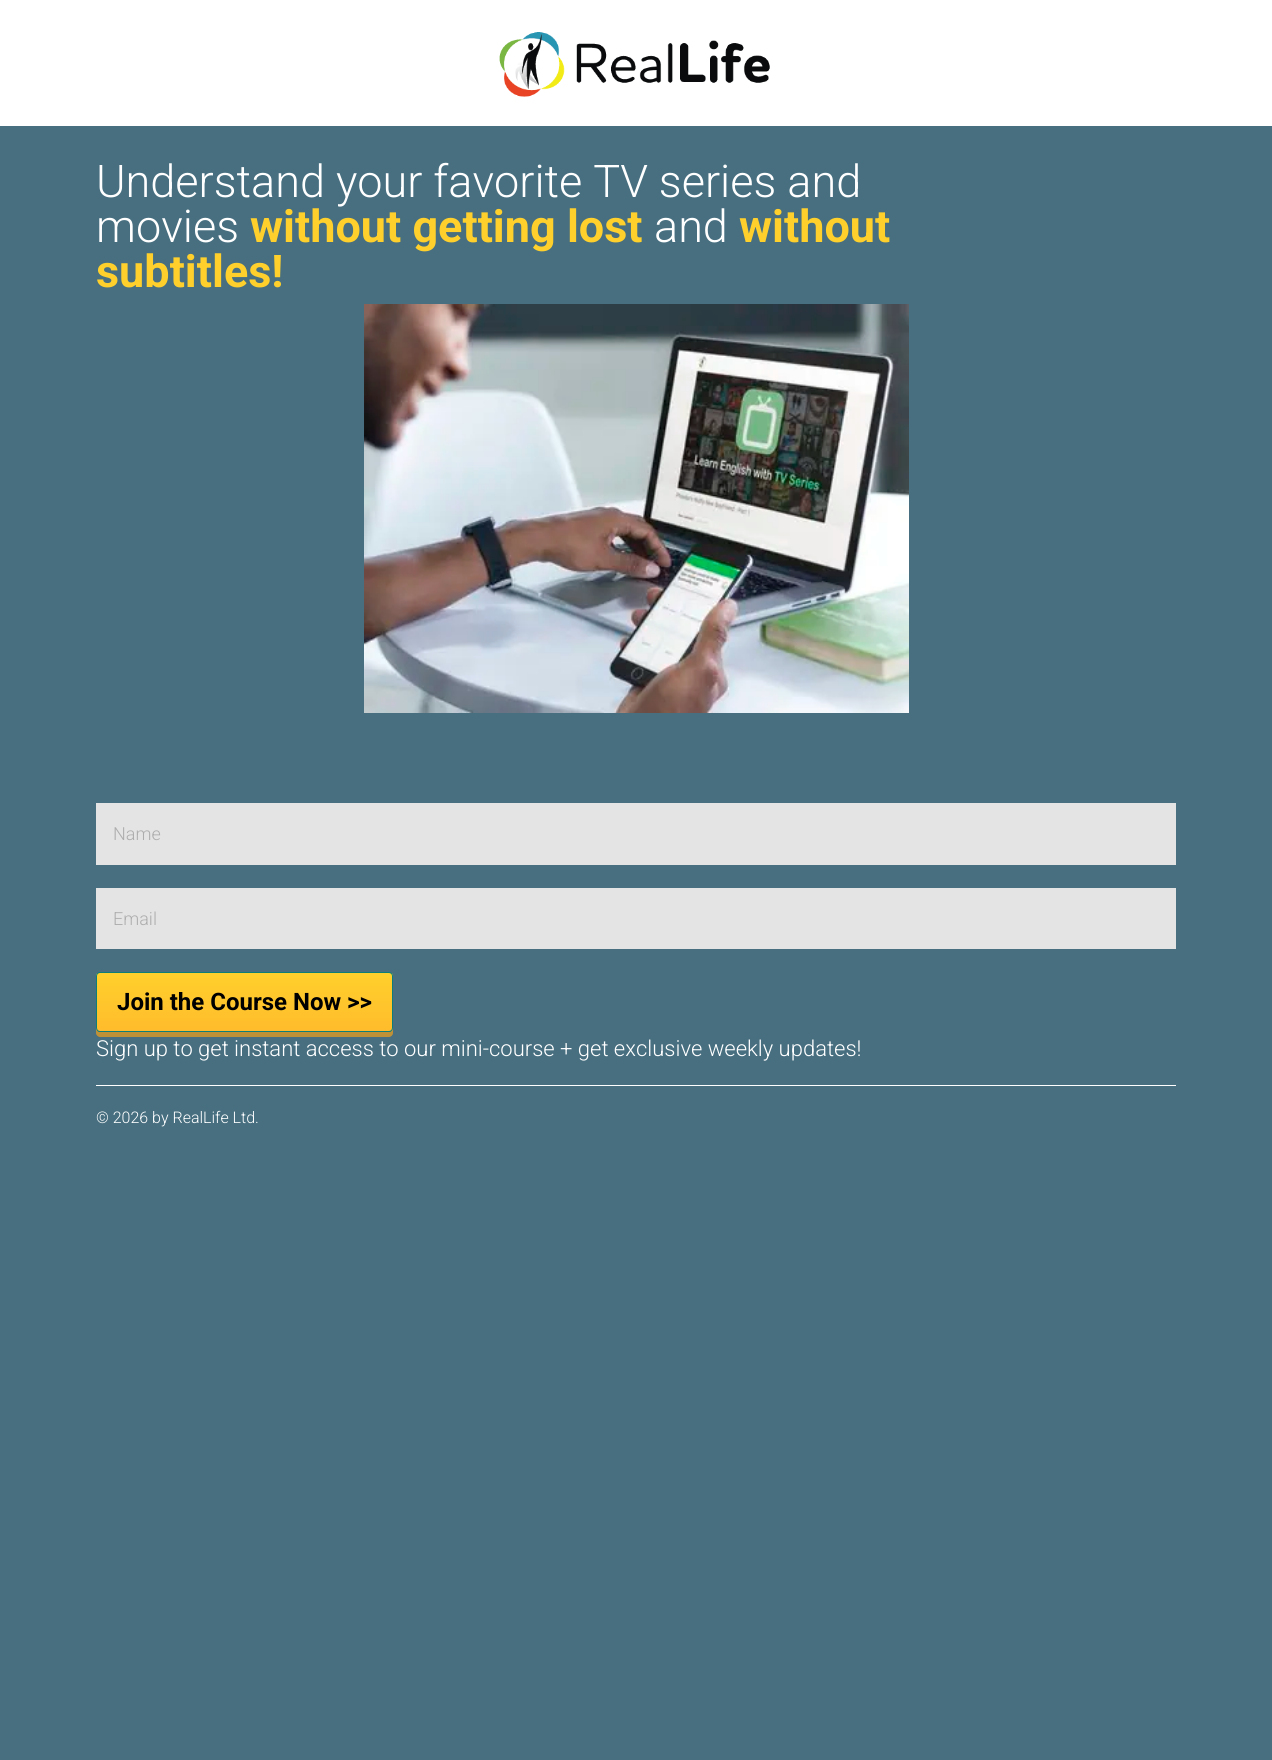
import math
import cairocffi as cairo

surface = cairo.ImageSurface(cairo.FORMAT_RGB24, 1272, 1760)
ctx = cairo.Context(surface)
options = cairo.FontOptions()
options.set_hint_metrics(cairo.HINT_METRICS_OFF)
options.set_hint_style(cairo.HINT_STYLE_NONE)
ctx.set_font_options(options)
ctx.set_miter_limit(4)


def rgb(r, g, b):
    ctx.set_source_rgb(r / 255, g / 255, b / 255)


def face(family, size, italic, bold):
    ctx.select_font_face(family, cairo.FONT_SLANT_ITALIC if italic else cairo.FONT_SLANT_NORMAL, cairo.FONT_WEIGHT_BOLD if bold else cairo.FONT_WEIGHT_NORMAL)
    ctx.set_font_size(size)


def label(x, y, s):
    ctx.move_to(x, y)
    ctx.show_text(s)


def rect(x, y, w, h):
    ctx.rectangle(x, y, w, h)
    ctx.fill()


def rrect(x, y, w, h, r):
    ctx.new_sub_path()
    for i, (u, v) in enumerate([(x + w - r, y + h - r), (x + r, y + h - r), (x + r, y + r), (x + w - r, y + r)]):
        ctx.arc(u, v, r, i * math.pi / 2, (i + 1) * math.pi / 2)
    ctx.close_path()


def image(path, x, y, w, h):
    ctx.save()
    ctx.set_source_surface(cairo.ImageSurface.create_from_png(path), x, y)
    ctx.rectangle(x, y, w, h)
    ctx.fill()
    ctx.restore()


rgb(71, 111, 128)
ctx.paint()
rgb(255, 255, 255)
rect(0, 0, 1272, 126)
image('image0.png', 499, 32, 271, 65)
face('Roboto Light', 45, 0, 0)
label(96, 197, 'Understand your favorite TV series and')
label(96, 242, 'movies')
face('Roboto', 45, 0, 1)
rgb(255, 208, 44)
label(250, 242, 'without getting lost')
face('Roboto Light', 45, 0, 0)
rgb(255, 255, 255)
label(654, 242, 'and')
face('Roboto', 45, 0, 1)
rgb(255, 208, 44)
label(739, 242, 'without')
label(96, 287, 'subtitles!')
image('image1.png', 364, 304, 545, 409)
rgb(228, 228, 228)
rect(96, 803, 1080, 62)
face('Roboto Light', 18, 0, 0)
rgb(173, 173, 173)
label(113, 840, 'Name')
rgb(228, 228, 228)
rect(96, 888, 1080, 61)
rgb(173, 173, 173)
label(113, 925, 'Email')
rgb(191, 145, 55)
ctx.new_path()
ctx.move_to(96, 1028)
ctx.line_to(96, 1033)
ctx.curve_to(96, 1035, 98, 1037, 100, 1037)
ctx.line_to(389, 1037)
ctx.curve_to(391, 1037, 393, 1035, 393, 1033)
ctx.line_to(393, 1028)
ctx.curve_to(393, 1030, 391, 1032, 389, 1032)
ctx.line_to(100, 1032)
ctx.curve_to(98, 1032, 96, 1030, 96, 1028)
ctx.close_path()
ctx.fill()
ctx.save()
rrect(96, 972, 297, 60, 4)
ctx.clip()
gradient = cairo.LinearGradient(245, 973, 245, 1031)
gradient.add_color_stop_rgba(0, 1, 0.816, 0.173, 1)
gradient.add_color_stop_rgba(1, 1, 0.737, 0.173, 1)
ctx.set_source(gradient)
rect(96, 973, 297, 58)
ctx.restore()
rrect(96.5, 972.5, 296, 59, 3.5)
rgb(13, 127, 120)
ctx.set_line_width(1)
ctx.stroke()
face('Roboto', 24, 0, 1)
rgb(0, 0, 0)
label(117, 1010, 'Join the Course Now >>')
face('Roboto Light', 22, 0, 0)
rgb(255, 255, 255)
label(96, 1056, 'Sign up to get instant access to our mini-course + get exclusive weekly updates!')
rect(96, 1085, 1080, 1)
face('Roboto Light', 16, 0, 0)
label(96, 1123, '© 2026 by RealLife Ltd.')
surface.write_to_png('render.png')
